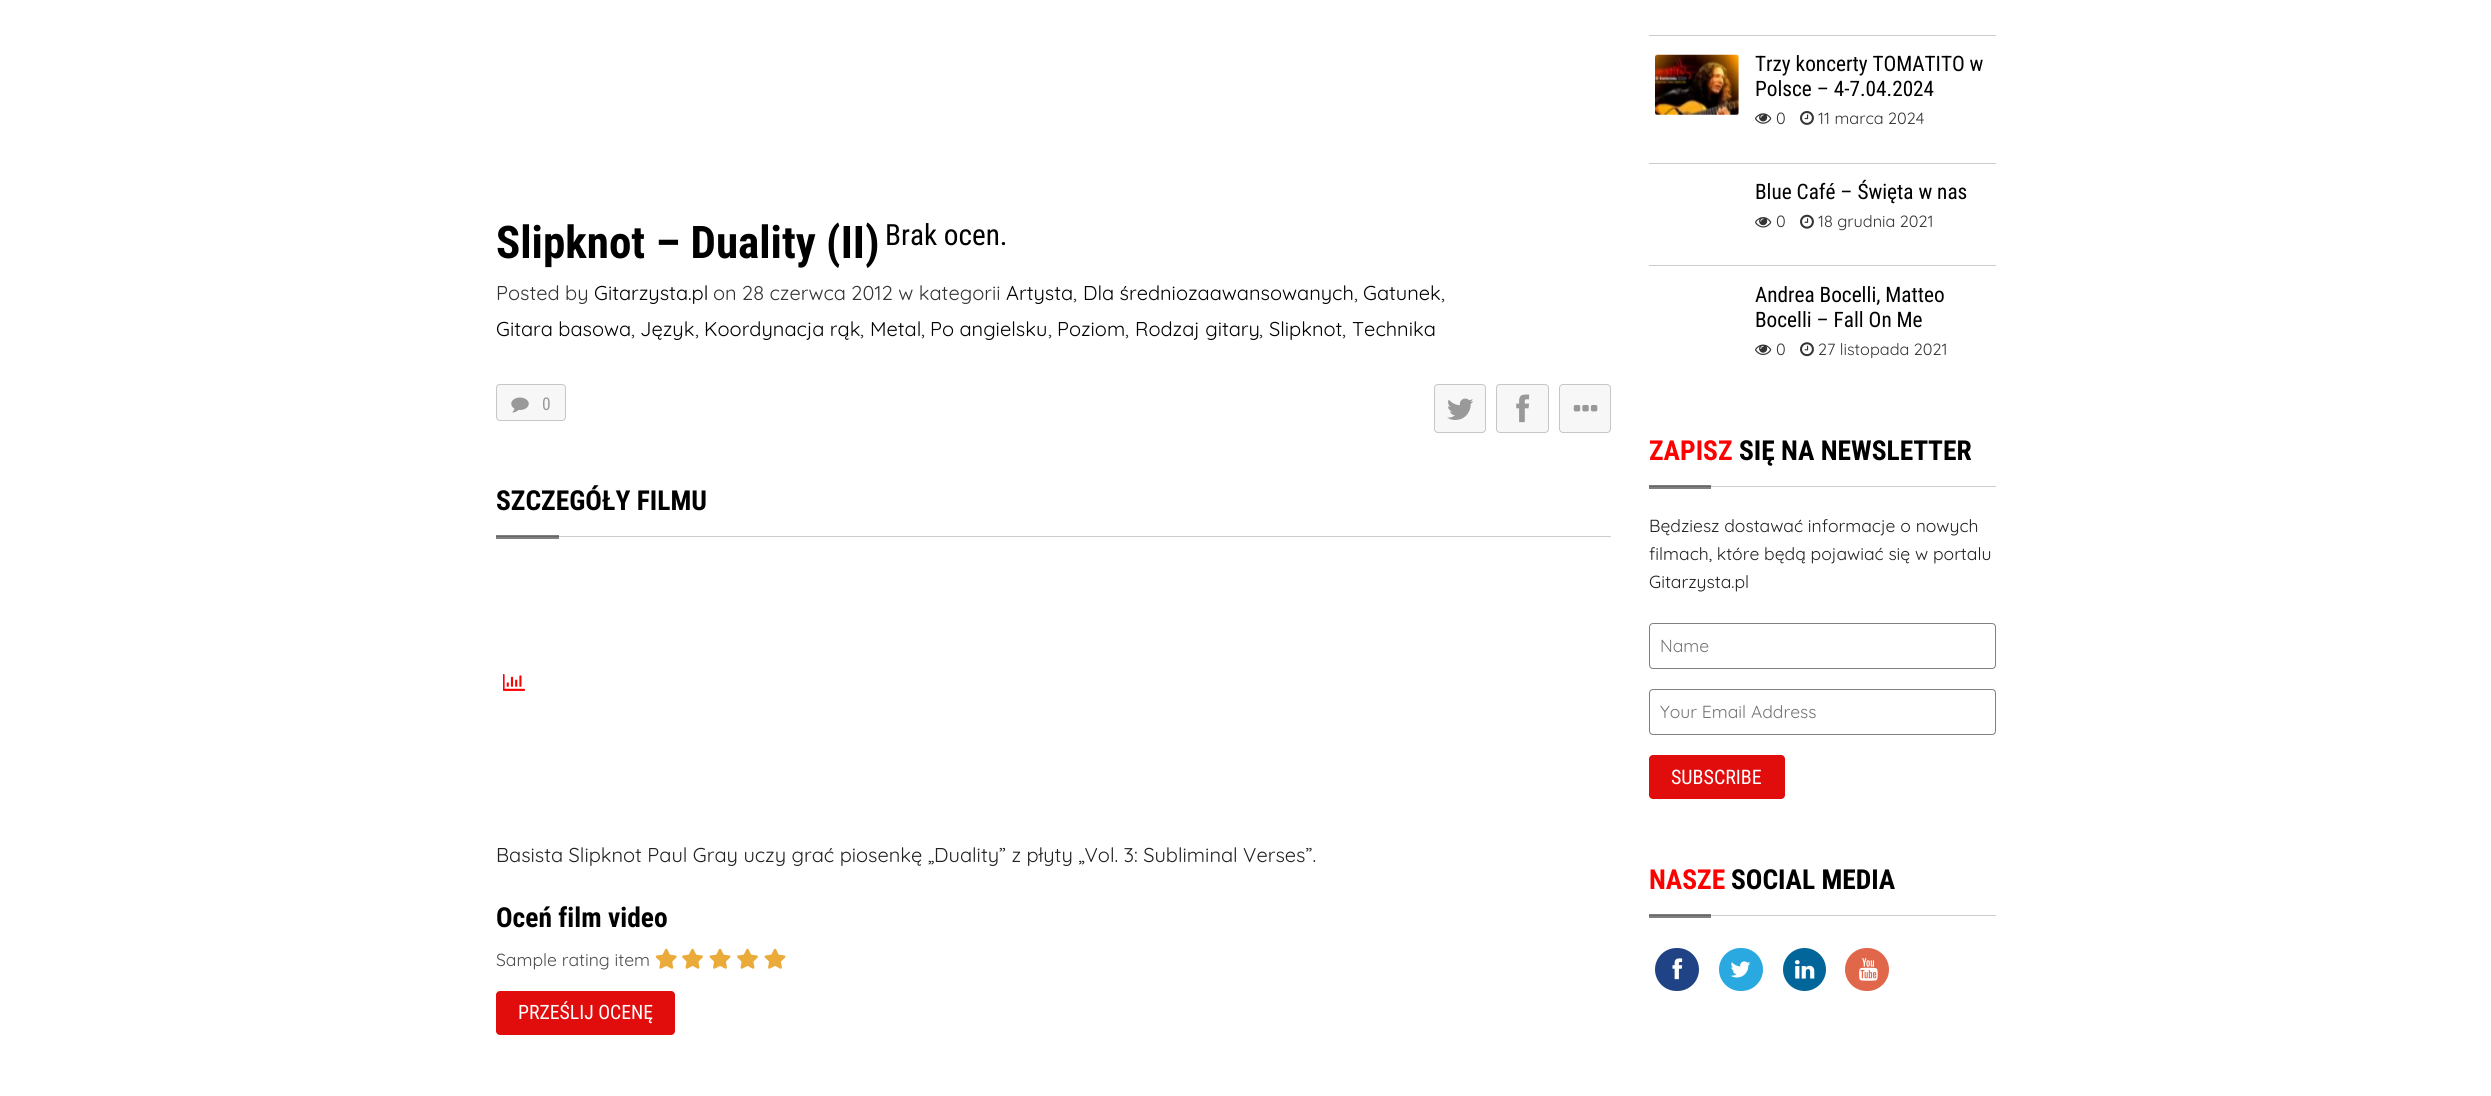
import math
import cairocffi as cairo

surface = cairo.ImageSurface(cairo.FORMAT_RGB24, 2491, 1096)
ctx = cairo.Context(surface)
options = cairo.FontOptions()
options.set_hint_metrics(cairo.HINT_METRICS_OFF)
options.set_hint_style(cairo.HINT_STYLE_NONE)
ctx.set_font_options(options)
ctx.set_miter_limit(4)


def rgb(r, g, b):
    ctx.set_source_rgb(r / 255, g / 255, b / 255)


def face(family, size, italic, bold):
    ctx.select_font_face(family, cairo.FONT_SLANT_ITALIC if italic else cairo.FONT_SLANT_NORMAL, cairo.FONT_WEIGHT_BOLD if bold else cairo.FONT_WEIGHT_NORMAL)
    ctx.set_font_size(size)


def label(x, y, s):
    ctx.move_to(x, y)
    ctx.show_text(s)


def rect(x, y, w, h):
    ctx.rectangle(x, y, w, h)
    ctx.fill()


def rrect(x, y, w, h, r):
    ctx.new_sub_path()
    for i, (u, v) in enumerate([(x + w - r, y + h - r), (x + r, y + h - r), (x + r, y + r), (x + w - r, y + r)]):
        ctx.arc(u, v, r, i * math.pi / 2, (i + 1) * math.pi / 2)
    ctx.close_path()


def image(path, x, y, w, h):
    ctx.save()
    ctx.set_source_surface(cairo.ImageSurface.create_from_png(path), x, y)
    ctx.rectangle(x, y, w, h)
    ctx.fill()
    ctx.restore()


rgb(255, 255, 255)
ctx.paint()
rgb(128, 128, 128)
rect(1649, 914, 62, 4)
rect(1649, 485, 62, 4)
rect(496, 535, 63, 4)
face('Roboto Condensed', 45, 0, 1)
rgb(0, 0, 0)
label(496, 258, 'Slipknot – Duality (II)')
face('Roboto Condensed', 29.25, 0, 0)
label(885, 245, 'Brak ocen.')
face('Quicksand', 20, 0, 0)
rgb(51, 51, 51)
label(496, 300, 'Posted by')
rgb(0, 0, 0)
label(594, 300, 'Gitarzysta.pl')
rgb(51, 51, 51)
label(713, 300, 'on 28 czerwca 2012 w kategorii')
rgb(0, 0, 0)
label(1006, 300, 'Artysta')
rgb(51, 51, 51)
label(1073, 300, ',')
rgb(0, 0, 0)
label(1083, 300, 'Dla średniozaawansowanych')
rgb(51, 51, 51)
label(1354, 300, ',')
rgb(0, 0, 0)
label(1363, 300, 'Gatunek')
rgb(51, 51, 51)
label(1441, 300, ',')
rgb(0, 0, 0)
label(496, 336, 'Gitara basowa')
rgb(51, 51, 51)
label(631, 336, ',')
rgb(0, 0, 0)
label(640, 336, 'Język')
rgb(51, 51, 51)
label(695, 336, ',')
rgb(0, 0, 0)
label(704, 336, 'Koordynacja rąk')
rgb(51, 51, 51)
label(860, 336, ',')
rgb(0, 0, 0)
label(870, 336, 'Metal')
rgb(51, 51, 51)
label(921, 336, ',')
rgb(0, 0, 0)
label(930, 336, 'Po angielsku')
rgb(51, 51, 51)
label(1048, 336, ',')
rgb(0, 0, 0)
label(1057, 336, 'Poziom')
rgb(51, 51, 51)
label(1125, 336, ',')
rgb(0, 0, 0)
label(1135, 336, 'Rodzaj gitary')
rgb(51, 51, 51)
label(1259, 336, ',')
rgb(0, 0, 0)
label(1269, 336, 'Slipknot')
rgb(51, 51, 51)
label(1342, 336, ',')
rgb(0, 0, 0)
label(1352, 336, 'Technika')
rgb(247, 247, 247)
rrect(496, 384, 70, 37, 4)
ctx.fill()
rrect(496.5, 384.5, 69, 36, 3.5)
ctx.set_source_rgba(0, 0, 0, 0.2)
ctx.set_line_width(1)
ctx.stroke()
image('image0.png', 511, 397, 18, 16)
face('Roboto Condensed', 17.5, 0, 0)
rgb(153, 153, 153)
label(542, 410, '0')
rgb(247, 247, 247)
rrect(1434, 384, 52, 49, 4)
ctx.fill()
rrect(1434.5, 384.5, 51, 48, 3.5)
ctx.set_source_rgba(0, 0, 0, 0.2)
ctx.stroke()
image('image1.png', 1447, 398, 27, 22)
rgb(247, 247, 247)
rrect(1496, 384, 53, 49, 4)
ctx.fill()
rrect(1496.5, 384.5, 52, 48, 3.5)
ctx.set_source_rgba(0, 0, 0, 0.2)
ctx.stroke()
image('image2.png', 1516, 394, 14, 29)
rgb(247, 247, 247)
rrect(1559, 384, 52, 49, 4)
ctx.fill()
rrect(1559.5, 384.5, 51, 48, 3.5)
ctx.set_source_rgba(0, 0, 0, 0.2)
ctx.stroke()
image('image3.png', 1573, 405, 25, 7)
rgb(204, 204, 204)
rect(559, 536, 1052, 1)
rgb(102, 102, 102)
rect(496, 536, 63, 1)
face('Roboto Condensed', 27.5, 0, 1)
rgb(0, 0, 0)
label(496, 510, 'SZCZEGÓŁY FILMU')
image('image4.png', 503, 674, 22, 17)
face('Quicksand', 20, 0, 0)
rgb(34, 34, 34)
label(496, 862, 'Basista Slipknot Paul Gray uczy grać piosenkę „Duality” z płyty „Vol. 3: Subliminal Verses”.')
face('Roboto Condensed', 27.5, 0, 1)
rgb(0, 0, 0)
label(496, 927, 'Oceń film video')
face('Quicksand', 17.5, 0, 0)
rgb(77, 77, 77)
label(496, 966, 'Sample rating item')
image('image5.png', 655, 948, 22, 21)
image('image6.png', 682, 948, 21, 21)
image('image7.png', 709, 948, 22, 21)
image('image6.png', 737, 948, 21, 21)
image('image7.png', 764, 948, 22, 21)
rgb(225, 13, 13)
rrect(496, 991, 179, 44, 4)
ctx.fill()
face('Roboto Condensed', 19.75, 0, 0)
rgb(255, 255, 255)
label(518, 1019, 'PRZEŚLIJ OCENĘ')
rgb(204, 204, 204)
rect(1649, 35, 347, 1)
rect(1649, 163, 347, 1)
image('image8.png', 1655, 54, 84, 61)
face('Roboto Condensed', 21.25, 0, 0)
rgb(0, 0, 0)
label(1755, 71, 'Trzy koncerty TOMATITO w')
label(1755, 96, 'Polsce – 4-7.04.2024')
image('image9.png', 1755, 113, 17, 11)
face('Quicksand', 16.25, 0, 0)
rgb(51, 51, 51)
label(1776, 124, '0')
image('image10.png', 1800, 111, 14, 14)
label(1818, 124, '11 marca 2024')
rgb(204, 204, 204)
rect(1649, 265, 347, 1)
face('Roboto Condensed', 21.25, 0, 0)
rgb(0, 0, 0)
label(1755, 199, 'Blue Café – Święta w nas')
image('image11.png', 1755, 217, 17, 11)
face('Quicksand', 16.25, 0, 0)
rgb(51, 51, 51)
label(1776, 227, '0')
image('image12.png', 1800, 214, 14, 15)
label(1818, 227, '18 grudnia 2021')
face('Roboto Condensed', 21.25, 0, 0)
rgb(0, 0, 0)
label(1755, 302, 'Andrea Bocelli, Matteo')
label(1755, 327, 'Bocelli – Fall On Me')
image('image13.png', 1755, 344, 17, 11)
face('Quicksand', 16.25, 0, 0)
rgb(51, 51, 51)
label(1776, 355, '0')
image('image14.png', 1800, 342, 14, 15)
label(1818, 355, '27 listopada 2021')
rgb(204, 204, 204)
rect(1711, 486, 285, 1)
rgb(102, 102, 102)
rect(1649, 486, 62, 1)
face('Roboto Condensed', 27.5, 0, 1)
rgb(255, 0, 0)
label(1649, 460, 'ZAPISZ')
rgb(0, 0, 0)
label(1739, 460, 'SIĘ NA NEWSLETTER')
face('Quicksand', 17.5, 0, 0)
rgb(34, 34, 34)
label(1649, 532, 'Będziesz dostawać informacje o nowych')
label(1649, 560, 'filmach, które będą pojawiać się w portalu')
label(1649, 588, 'Gitarzysta.pl')
rrect(1649.5, 623.5, 346, 45, 3.5)
rgb(128, 128, 128)
ctx.stroke()
rgb(117, 117, 117)
label(1660, 652, 'Name')
rrect(1649.5, 689.5, 346, 45, 3.5)
rgb(128, 128, 128)
ctx.stroke()
rgb(117, 117, 117)
label(1660, 718, 'Your Email Address')
rgb(225, 13, 13)
rrect(1649, 755, 136, 44, 4)
ctx.fill()
face('Roboto Condensed', 20, 0, 0)
rgb(255, 255, 255)
label(1671, 784, 'SUBSCRIBE')
rgb(204, 204, 204)
rect(1711, 915, 285, 1)
rgb(102, 102, 102)
rect(1649, 915, 62, 1)
face('Roboto Condensed', 27.5, 0, 1)
rgb(255, 0, 0)
label(1649, 889, 'NASZE')
rgb(0, 0, 0)
label(1731, 889, 'SOCIAL MEDIA')
rgb(32, 67, 133)
rrect(1656.5, 949.5, 41, 40, 20)
ctx.fill_preserve()
ctx.set_line_width(3)
ctx.stroke()
image('image15.png', 1672, 958, 11, 22)
rgb(42, 169, 224)
rrect(1720.5, 949.5, 41, 40, 20)
ctx.fill_preserve()
ctx.stroke()
image('image16.png', 1730, 961, 21, 17)
rgb(2, 102, 154)
ctx.arc(1804.5, 969.5, 20, 0, 2 * math.pi)
ctx.fill_preserve()
ctx.stroke()
image('image17.png', 1795, 960, 20, 19)
rgb(224, 103, 74)
rrect(1846.5, 949.5, 41, 40, 20)
ctx.fill_preserve()
ctx.stroke()
image('image18.png', 1859, 958, 19, 23)
surface.write_to_png('render.png')
